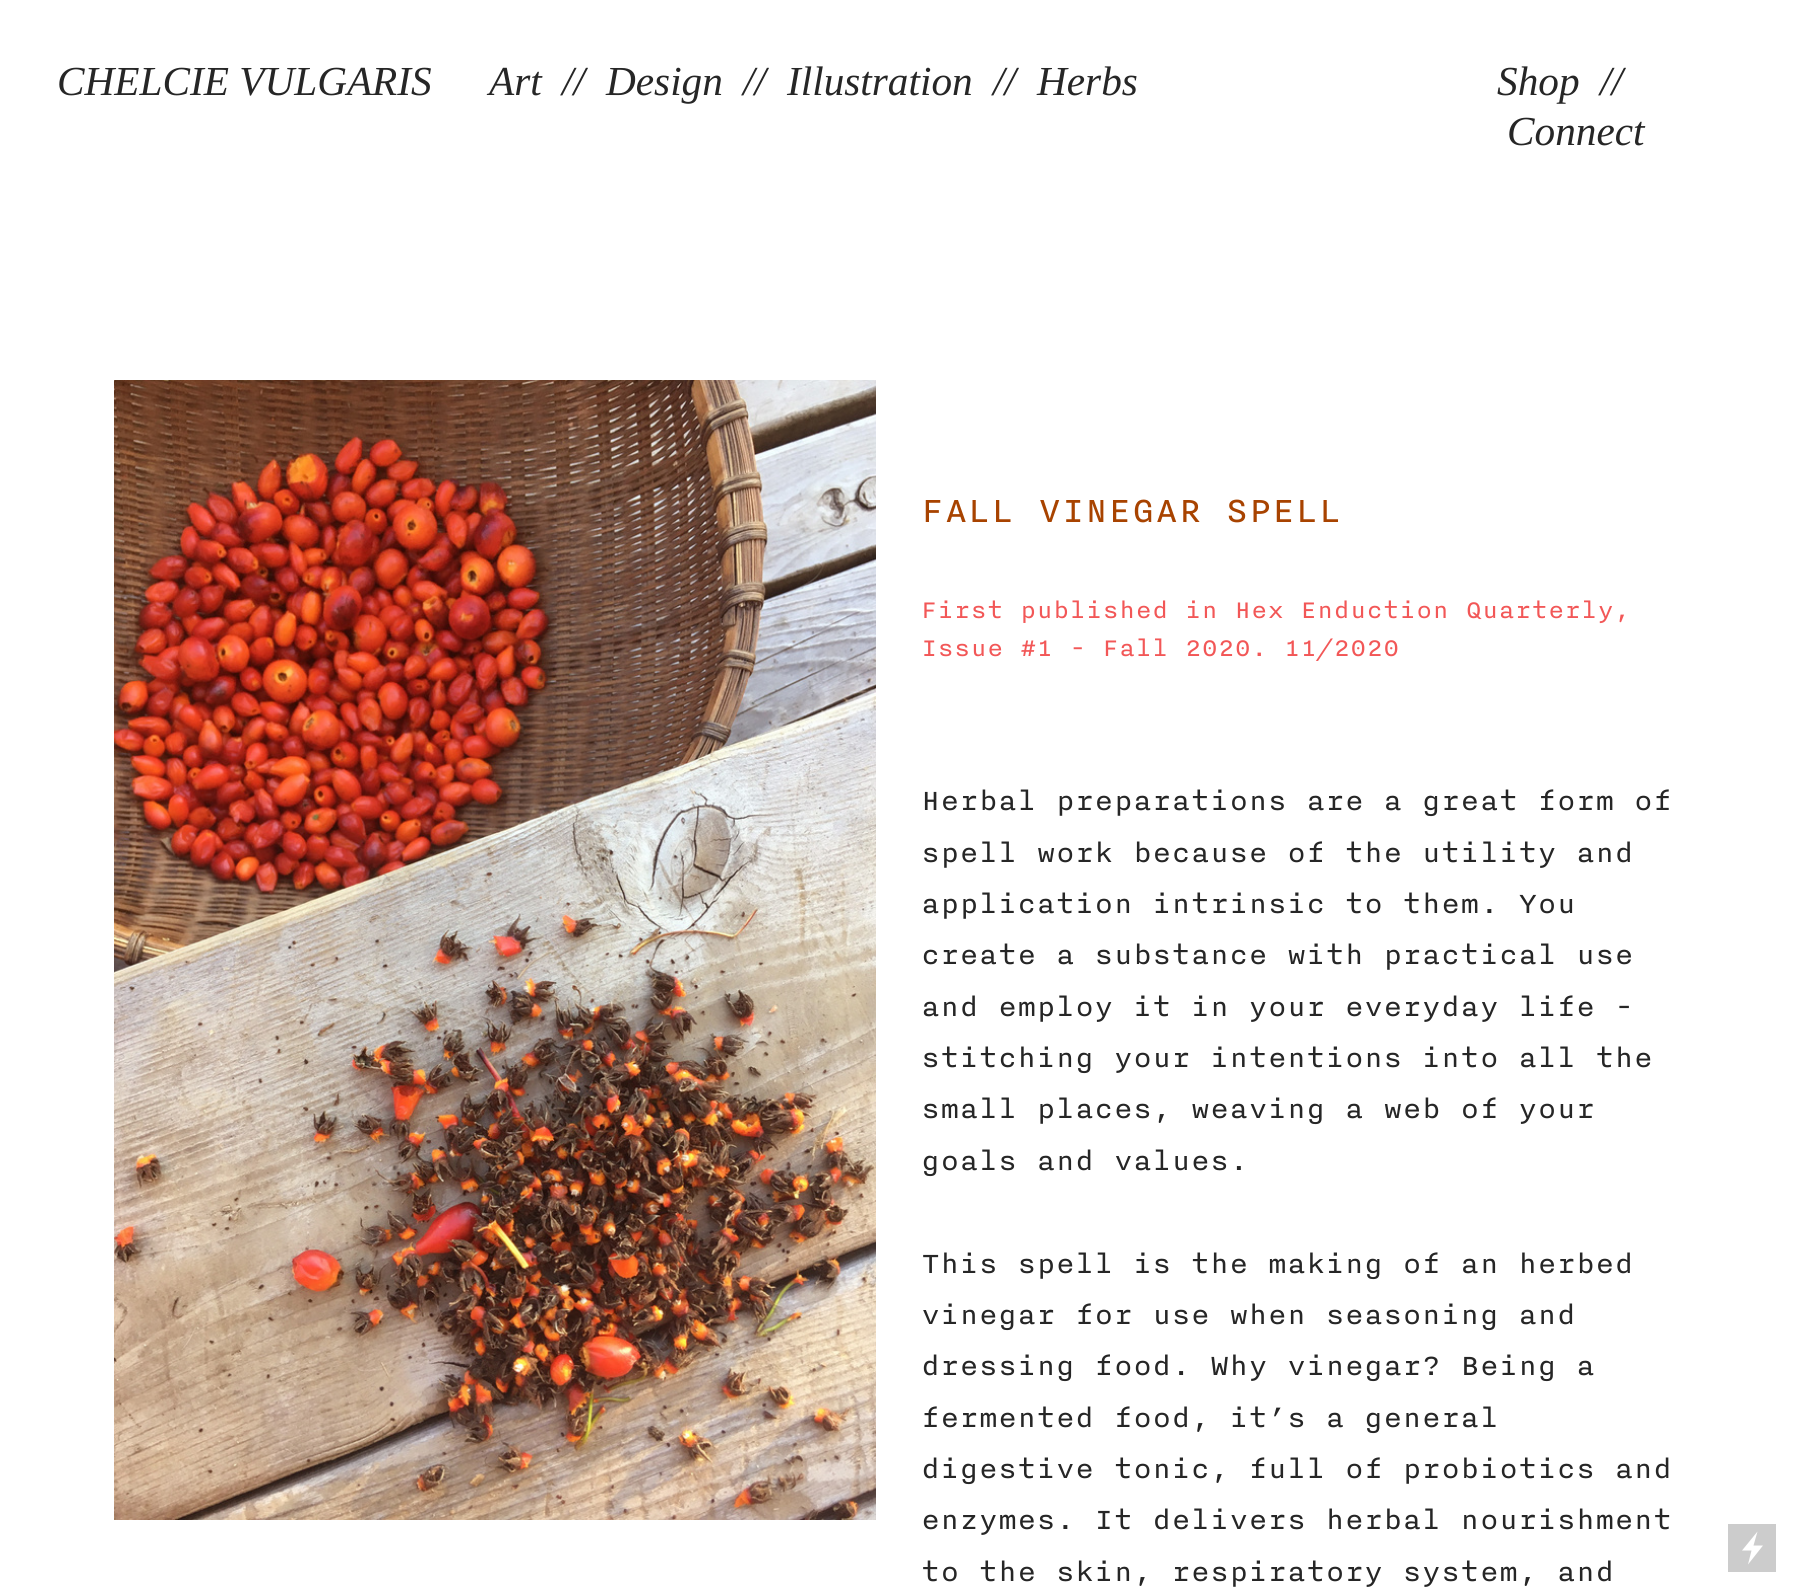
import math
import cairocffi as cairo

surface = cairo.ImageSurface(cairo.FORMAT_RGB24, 1795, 1592)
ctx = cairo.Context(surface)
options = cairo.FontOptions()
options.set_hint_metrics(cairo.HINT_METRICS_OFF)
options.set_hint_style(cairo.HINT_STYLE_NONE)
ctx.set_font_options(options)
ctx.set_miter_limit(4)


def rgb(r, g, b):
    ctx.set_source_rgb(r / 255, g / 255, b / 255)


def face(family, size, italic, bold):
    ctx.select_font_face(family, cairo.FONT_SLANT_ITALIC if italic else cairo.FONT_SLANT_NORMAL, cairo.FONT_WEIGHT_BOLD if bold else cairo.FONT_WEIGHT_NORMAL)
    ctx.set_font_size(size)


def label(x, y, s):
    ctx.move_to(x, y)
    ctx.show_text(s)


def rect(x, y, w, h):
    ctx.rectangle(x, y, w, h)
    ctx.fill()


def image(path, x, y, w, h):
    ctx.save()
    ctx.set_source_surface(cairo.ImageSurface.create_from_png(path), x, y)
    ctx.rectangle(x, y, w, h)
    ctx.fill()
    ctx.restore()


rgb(255, 255, 255)
ctx.paint()
face('Liberation Serif', 41.25, 1, 0)
rgb(38, 38, 38)
label(57, 95, 'CHELCIE VULGARIS')
label(489, 95, 'Art')
label(562, 95, '//')
label(606, 95, 'Design')
label(743, 95, '//')
label(787, 95, 'Illustration')
label(993, 95, '//')
label(1037, 95, 'Herbs')
label(1497, 95, 'Shop')
label(1600, 95, '//')
label(1507, 145, 'Connect')
image('image0.png', 114, 380, 762, 1140)
face('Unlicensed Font', 39, 0, 0)
rgb(168, 67, 0)
label(921, 522, 'FALL VINEGAR SPELL')
face('Unlicensed Font', 27.5, 0, 0)
rgb(242, 87, 87)
label(921, 618, 'First published in Hex Enduction Quarterly,')
label(921, 656, 'Issue #1 - Fall 2020. 11/2020')
face('Unlicensed Font', 32.1, 0, 0)
rgb(38, 38, 38)
label(921, 810, 'Herbal preparations are a great form of')
label(921, 862, 'spell work because of the utility and')
label(921, 913, 'application intrinsic to them. You')
label(921, 964, 'create a substance with practical use')
label(921, 1016, 'and employ it in your everyday life -')
label(921, 1067, 'stitching your intentions into all the')
label(921, 1118, 'small places, weaving a web of your')
label(921, 1170, 'goals and values.')
label(921, 1273, 'This spell is the making of an herbed')
label(921, 1324, 'vinegar for use when seasoning and')
label(921, 1375, 'dressing food. Why vinegar? Being a')
label(921, 1427, 'fermented food, it’s a general')
label(921, 1478, 'digestive tonic, full of probiotics and')
label(921, 1529, 'enzymes. It delivers herbal nourishment')
label(921, 1581, 'to the skin, respiratory system, and')
rgb(204, 204, 204)
rect(1728, 1524, 48, 48)
rgb(255, 255, 255)
ctx.new_path()
ctx.move_to(1763, 1545.5)
ctx.line_to(1753.5, 1545.5)
ctx.line_to(1757.5, 1531.5)
ctx.line_to(1742, 1550.5)
ctx.line_to(1751.5, 1550.5)
ctx.line_to(1748, 1564.5)
ctx.close_path()
ctx.fill()
surface.write_to_png('render.png')
